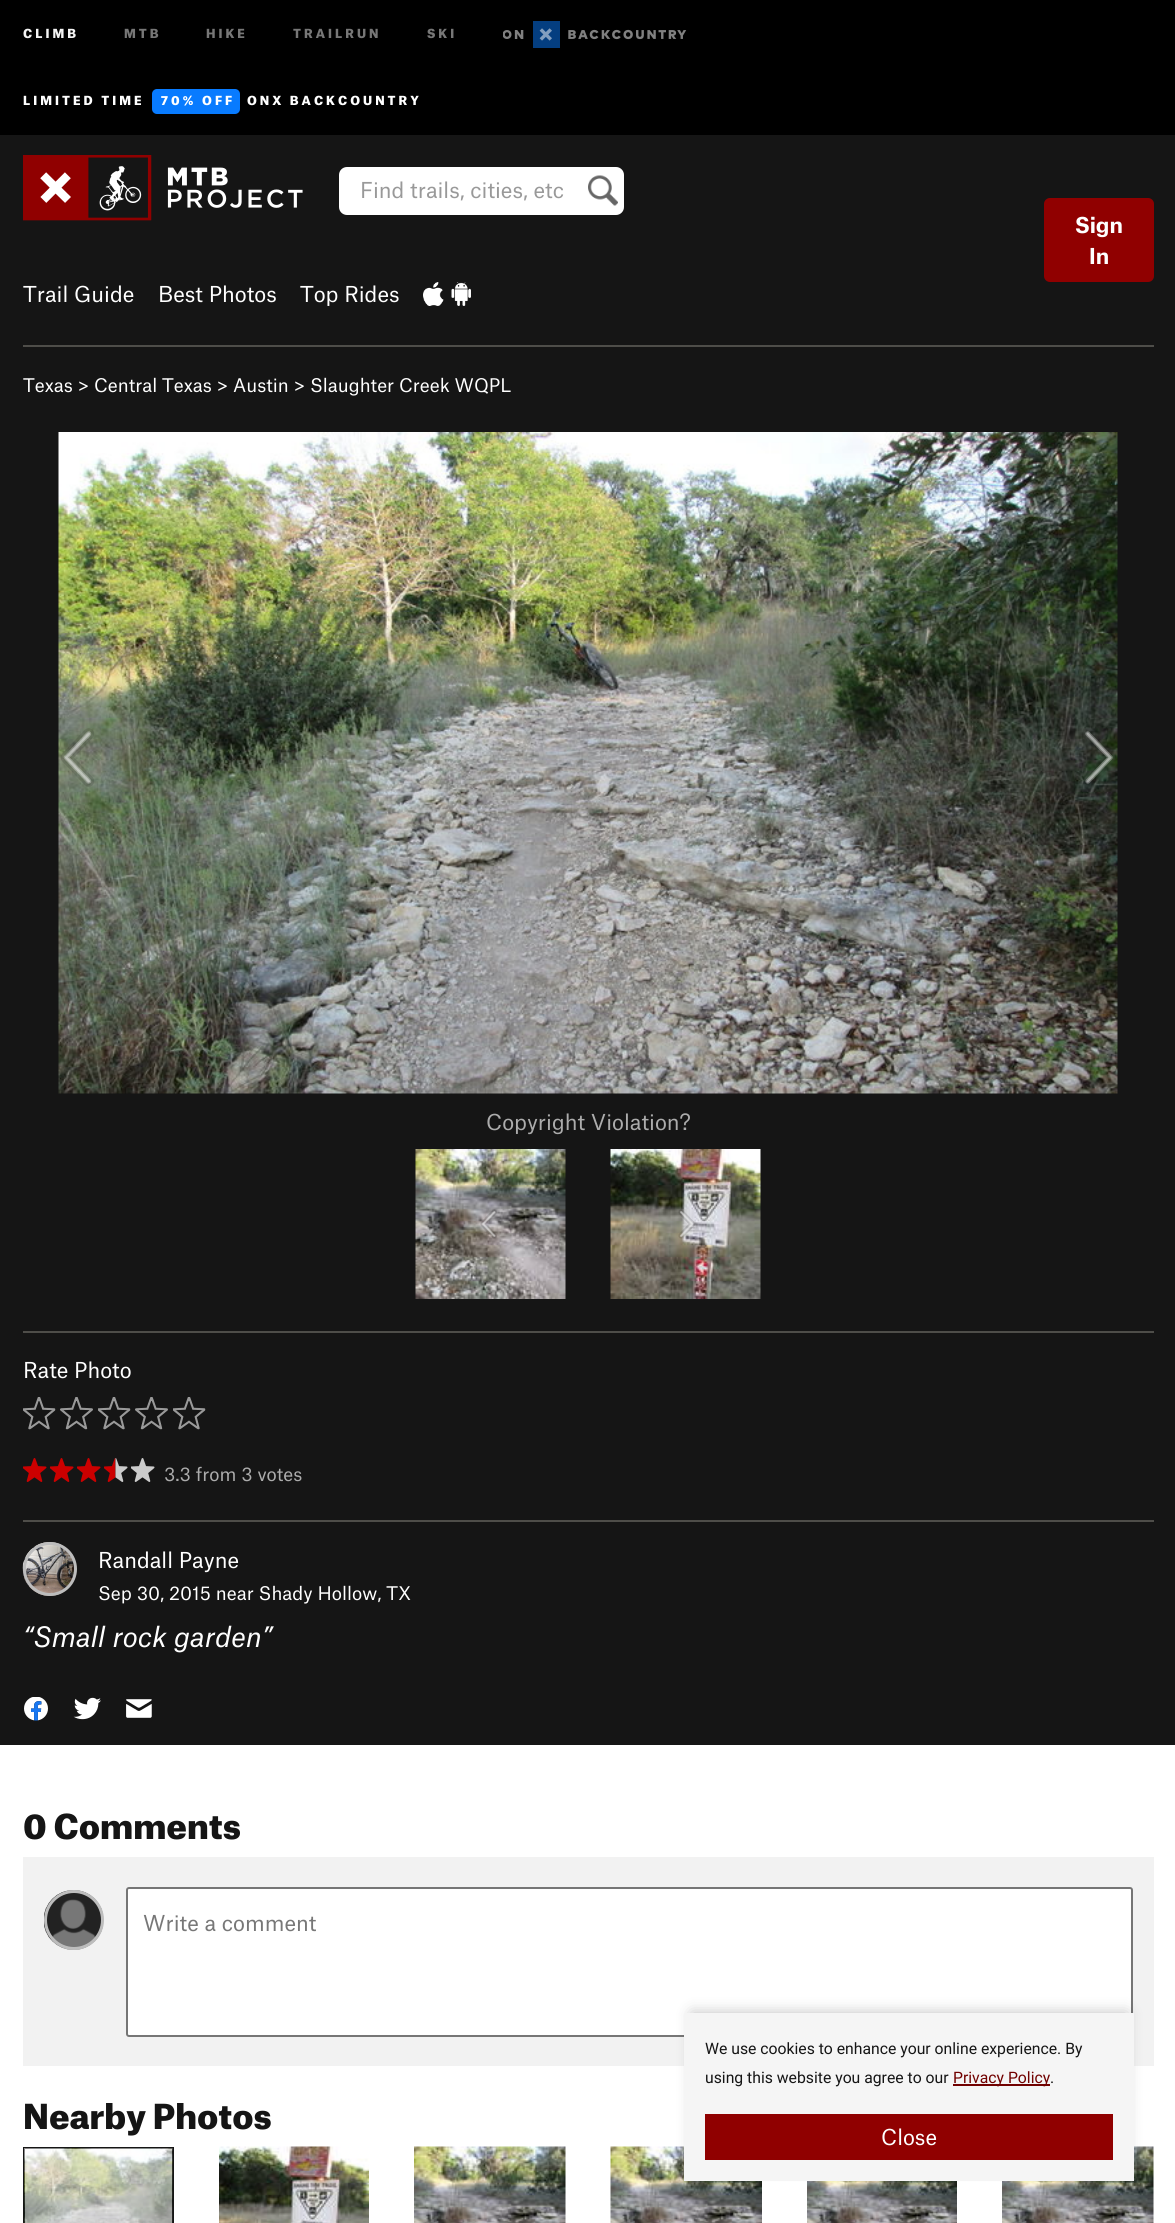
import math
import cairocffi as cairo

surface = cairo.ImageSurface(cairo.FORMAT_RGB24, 1175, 2223)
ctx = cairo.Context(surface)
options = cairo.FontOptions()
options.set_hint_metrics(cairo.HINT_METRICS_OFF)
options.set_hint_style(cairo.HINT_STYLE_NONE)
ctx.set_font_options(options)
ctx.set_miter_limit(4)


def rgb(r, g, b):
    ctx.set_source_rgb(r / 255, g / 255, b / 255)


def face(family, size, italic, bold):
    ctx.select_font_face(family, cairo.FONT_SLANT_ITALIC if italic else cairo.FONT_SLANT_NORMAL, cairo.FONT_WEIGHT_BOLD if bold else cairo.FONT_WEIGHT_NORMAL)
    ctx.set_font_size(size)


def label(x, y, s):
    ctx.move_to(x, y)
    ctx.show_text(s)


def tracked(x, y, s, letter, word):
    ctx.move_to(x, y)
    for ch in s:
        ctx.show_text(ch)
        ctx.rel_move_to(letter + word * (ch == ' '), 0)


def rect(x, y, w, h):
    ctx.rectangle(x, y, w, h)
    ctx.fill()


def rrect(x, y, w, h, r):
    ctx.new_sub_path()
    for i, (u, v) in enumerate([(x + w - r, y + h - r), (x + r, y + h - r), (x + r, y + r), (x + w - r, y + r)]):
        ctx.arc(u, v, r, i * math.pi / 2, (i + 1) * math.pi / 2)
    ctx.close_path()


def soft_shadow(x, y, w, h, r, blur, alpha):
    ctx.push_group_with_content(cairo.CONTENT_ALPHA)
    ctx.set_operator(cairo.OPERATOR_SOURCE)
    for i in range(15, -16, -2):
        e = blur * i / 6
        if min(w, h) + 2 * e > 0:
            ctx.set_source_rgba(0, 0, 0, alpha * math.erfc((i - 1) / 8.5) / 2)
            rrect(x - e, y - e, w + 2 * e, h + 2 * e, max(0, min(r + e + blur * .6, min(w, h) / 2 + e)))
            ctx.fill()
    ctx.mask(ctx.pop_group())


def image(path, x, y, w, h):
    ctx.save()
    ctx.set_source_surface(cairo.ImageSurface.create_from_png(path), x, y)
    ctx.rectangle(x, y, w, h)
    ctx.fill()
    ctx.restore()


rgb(255, 255, 255)
ctx.paint()
rgb(21, 21, 21)
rect(0, 135, 1175, 1610)
rgb(0, 0, 0)
rect(0, 0, 1175, 135)
face('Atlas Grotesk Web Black', 12, 0, 0)
rgb(245, 245, 245)
tracked(23, 38, 'CLIMB', 3, 0)
rgb(119, 119, 119)
tracked(124, 38, 'MTB', 3, 0)
tracked(206, 38, 'HIKE', 3, 0)
tracked(293, 38, 'TRAILRUN', 3, 0)
tracked(427, 38, 'SKI', 3, 0)
image('image0.png', 503, 21, 184, 27)
rgb(255, 255, 255)
tracked(23, 105, 'LIMITED TIME', 3, 0)
rgb(8, 123, 255)
rrect(152, 89, 88, 25, 5)
ctx.fill()
rgb(255, 255, 255)
tracked(161, 105, '70% OFF', 3, 0)
tracked(247, 105, 'ONX BACKCOUNTRY', 3, 0)
image('image1.png', 23, 155, 280, 66)
rrect(339, 167, 285, 48, 8)
ctx.fill()
image('image2.png', 588, 175, 30, 31)
face('Atlas Grotesk Web', 21, 0, 0)
rgb(153, 153, 153)
label(360, 198, 'Find trails, cities, etc')
rgb(255, 255, 255)
label(23, 302, 'Trail Guide')
label(158, 302, 'Best Photos')
label(300, 302, 'Top Rides')
image('image3.png', 423, 282, 21, 24)
image('image4.png', 451, 282, 20, 24)
rgb(144, 0, 0)
rrect(1044, 198, 110, 84, 6)
ctx.fill()
face('Atlas Grotesk Web', 21, 0, 1)
rgb(255, 255, 255)
label(1075, 233, 'Sign')
label(1089, 264, 'In')
rgb(78, 77, 73)
rect(23, 345, 1131, 2)
face('Atlas Grotesk Web', 18, 0, 0)
rgb(255, 255, 255)
label(23, 392, 'Texas > Central Texas > Austin > Slaughter Creek WQPL')
image('image5.png', 58, 432, 1060, 662)
image('image6.png', 60, 728, 34, 59)
image('image7.png', 1082, 729, 33, 55)
face('Atlas Grotesk Web', 21, 0, 0)
rgb(172, 172, 172)
label(486, 1130, 'Copyright Violation?')
image('image8.png', 415, 1149, 151, 150)
image('image9.png', 480, 1209, 17, 30)
image('image10.png', 610, 1149, 151, 150)
image('image11.png', 678, 1209, 17, 30)
rgb(78, 77, 73)
rect(23, 1331, 1131, 2)
rgb(255, 255, 255)
label(23, 1378, 'Rate Photo')
image('image12.png', 23, 1397, 33, 33)
image('image13.png', 60, 1397, 33, 33)
image('image12.png', 98, 1397, 33, 33)
image('image13.png', 135, 1397, 33, 33)
image('image12.png', 173, 1397, 33, 33)
image('image14.png', 23, 1458, 24, 24)
image('image14.png', 50, 1458, 24, 24)
image('image14.png', 77, 1458, 24, 24)
image('image15.png', 104, 1458, 24, 24)
image('image16.png', 131, 1458, 24, 24)
face('Atlas Grotesk Web', 18, 0, 0)
rgb(172, 172, 172)
label(164, 1481, '3.3 from 3 votes')
rgb(78, 77, 73)
rect(23, 1520, 1131, 2)
image('image17.png', 22, 1542, 55, 54)
ctx.arc(50, 1569, 25.5, 0, 2 * math.pi)
rgb(189, 189, 189)
ctx.set_line_width(3)
ctx.stroke()
face('Atlas Grotesk Web', 21, 0, 0)
rgb(255, 255, 255)
label(98, 1568, 'Randall Payne')
face('Atlas Grotesk Web', 18, 0, 0)
label(98, 1600, 'Sep 30, 2015 near Shady Hollow, TX')
face('Atlas Grotesk Web', 27, 1, 0)
label(23, 1647, '“Small rock garden”')
image('image18.png', 24, 1697, 24, 24)
image('image19.png', 73, 1697, 28, 23)
image('image20.png', 126, 1699, 26, 19)
face('Atlas Grotesk Web Black', 33, 0, 0)
rgb(21, 21, 21)
label(23, 1839, '0 Comments')
rgb(242, 242, 242)
rect(23, 1857, 1131, 209)
image('image21.png', 44, 1890, 60, 60)
ctx.arc(74, 1920, 28.5, 0, 2 * math.pi)
rgb(189, 189, 189)
ctx.stroke()
rgb(255, 255, 255)
rrect(127, 1888, 1005, 148, 2)
ctx.fill_preserve()
rgb(118, 118, 118)
ctx.set_line_width(2)
ctx.stroke()
face('Atlas Grotesk Web', 21, 0, 0)
rgb(119, 119, 119)
label(143, 1931, 'Write a comment')
face('Atlas Grotesk Web Black', 33, 0, 0)
rgb(21, 21, 21)
label(23, 2129, 'Nearby Photos')
ctx.rectangle(24, 2148, 149, 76)
ctx.stroke()
image('image22.png', 24, 2148, 149, 75)
image('image23.png', 219, 2146, 150, 77)
image('image24.png', 414, 2146, 152, 77)
image('image25.png', 610, 2146, 152, 77)
image('image26.png', 807, 2181, 150, 42)
image('image24.png', 1002, 2146, 152, 77)
rgb(0, 0, 0)
soft_shadow(692, 2013, 435, 153, 0, 7.5, 0.25)
rgb(245, 245, 245)
rect(684, 2013, 450, 168)
face('Roboto', 15.75, 0, 0)
rgb(21, 21, 21)
label(705, 2054, 'We use cookies to enhance your online experience. By')
label(705, 2083, 'using this website you agree to our')
rgb(113, 1, 0)
rect(953, 2084, 97, 2)
label(953, 2083, 'Privacy Policy')
rgb(21, 21, 21)
label(1050, 2083, '.')
rgb(144, 0, 0)
rect(705, 2114, 408, 46)
face('Atlas Grotesk Web', 21, 0, 0)
rgb(255, 255, 255)
label(881, 2145, 'Close')
surface.write_to_png('render.png')
